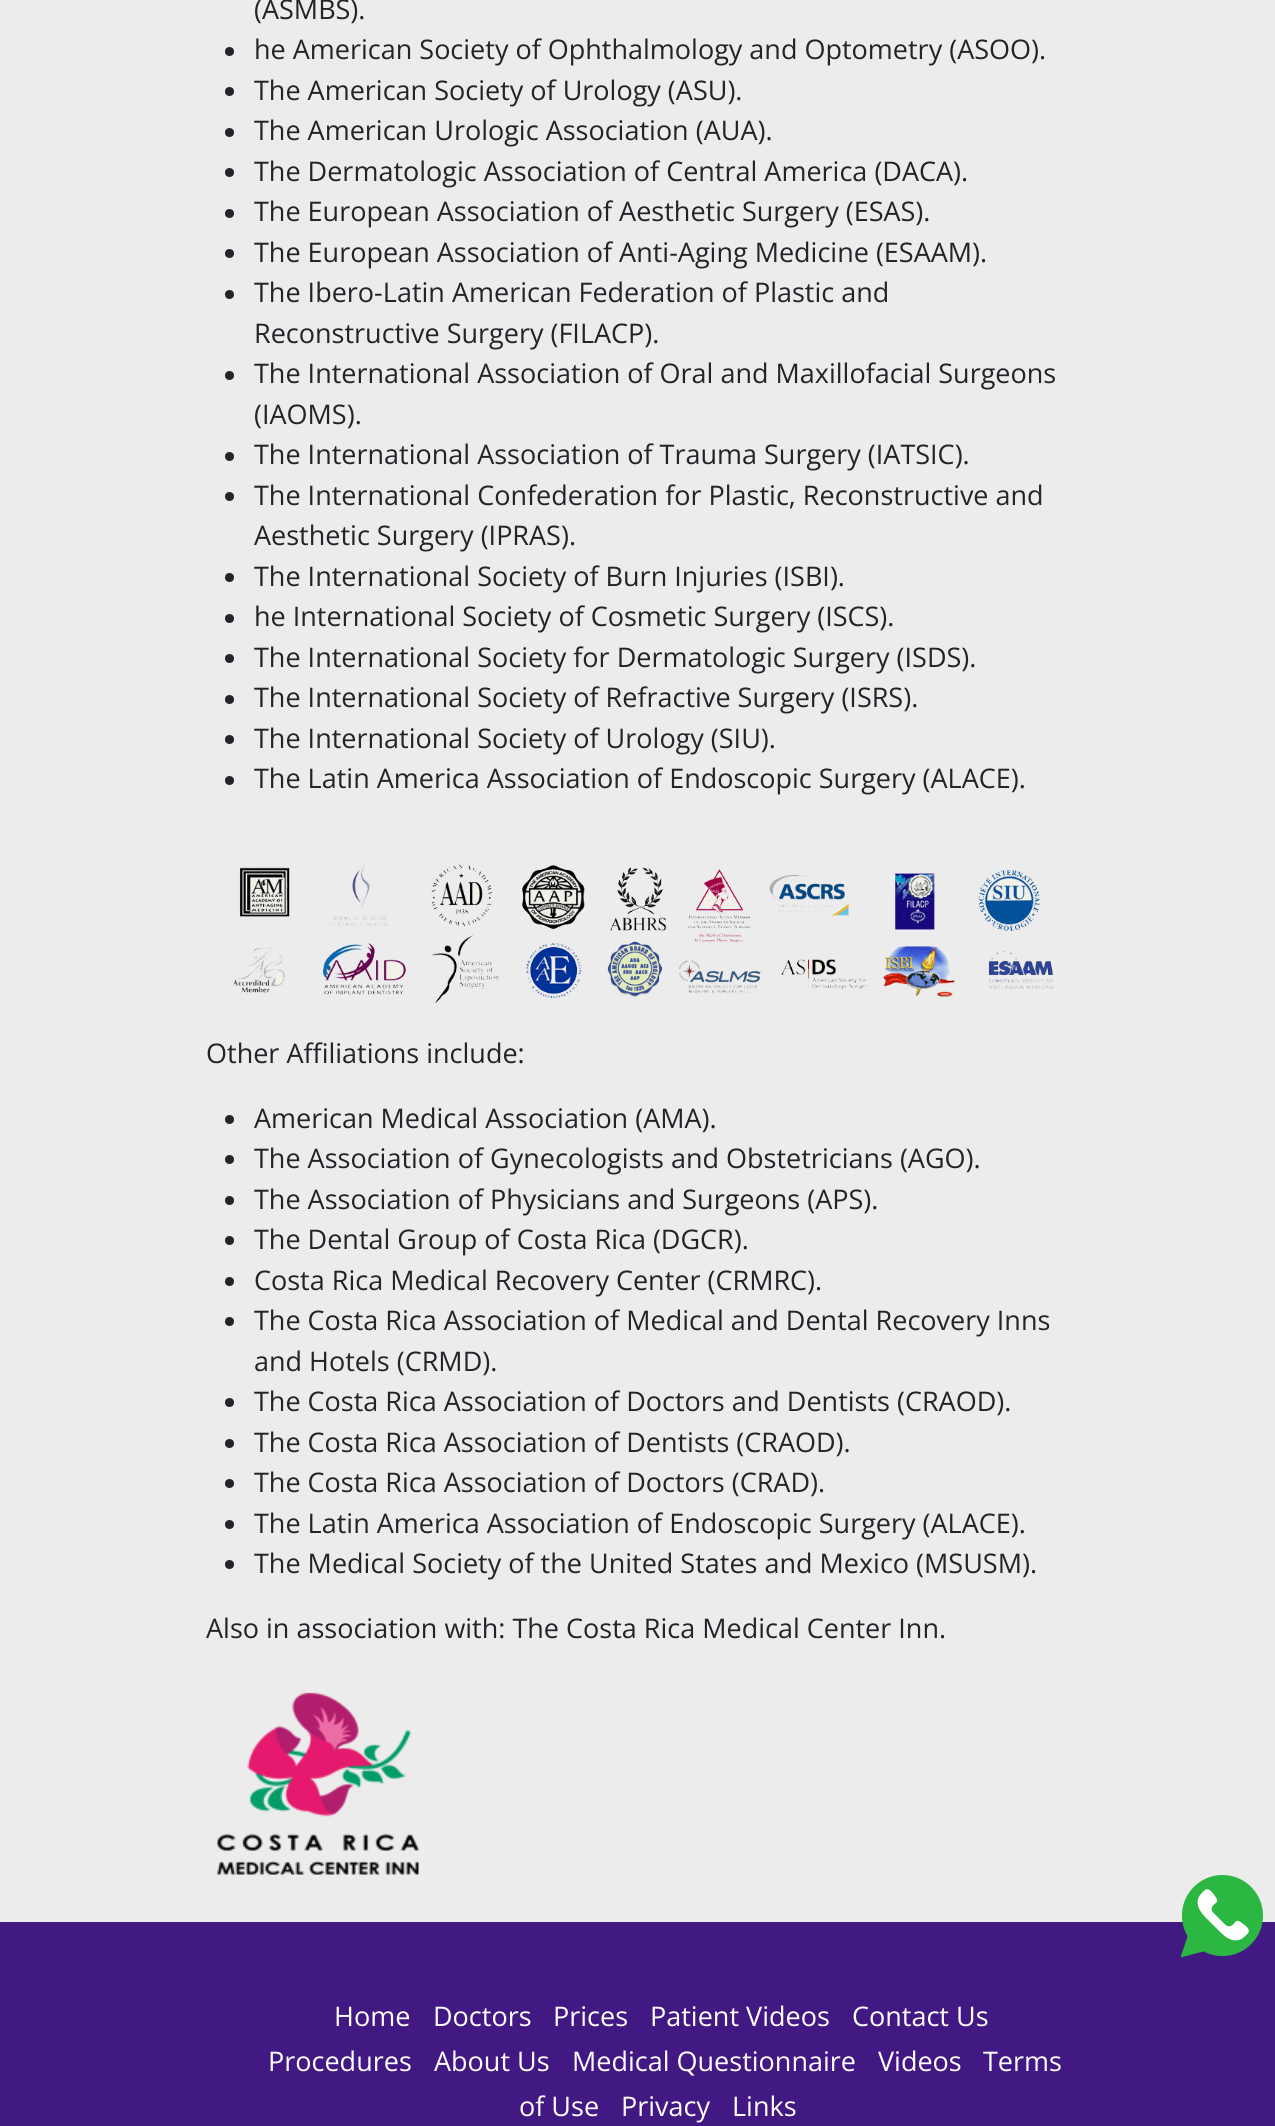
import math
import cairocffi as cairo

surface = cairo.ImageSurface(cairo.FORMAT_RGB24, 1275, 2126)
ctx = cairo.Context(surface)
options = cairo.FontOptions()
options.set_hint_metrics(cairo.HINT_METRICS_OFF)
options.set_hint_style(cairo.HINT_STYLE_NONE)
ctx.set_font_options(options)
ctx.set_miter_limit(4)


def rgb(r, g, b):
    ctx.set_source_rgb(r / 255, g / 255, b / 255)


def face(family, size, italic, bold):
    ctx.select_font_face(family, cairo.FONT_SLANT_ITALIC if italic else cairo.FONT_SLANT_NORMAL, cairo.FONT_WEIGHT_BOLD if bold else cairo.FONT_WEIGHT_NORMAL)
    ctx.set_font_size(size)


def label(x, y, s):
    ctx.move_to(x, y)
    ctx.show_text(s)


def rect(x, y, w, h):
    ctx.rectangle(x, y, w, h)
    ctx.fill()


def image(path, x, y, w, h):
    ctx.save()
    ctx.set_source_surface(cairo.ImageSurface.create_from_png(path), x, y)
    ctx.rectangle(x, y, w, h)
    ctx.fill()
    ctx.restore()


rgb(236, 236, 236)
ctx.paint()
face('Open Sans', 27, 0, 0)
rgb(33, 37, 41)
label(254, 19, '(ASMBS).')
ctx.new_path()
ctx.arc(229.5, 51.5, 4.5, 0, 2 * math.pi)
ctx.fill()
label(254, 59, 'he American Society of Ophthalmology and Optometry (ASOO).')
ctx.new_path()
ctx.arc(229.5, 91.5, 4.5, 0, 2 * math.pi)
ctx.fill()
label(254, 100, 'The American Society of Urology (ASU).')
ctx.new_path()
ctx.arc(229.5, 132.5, 4.5, 0, 2 * math.pi)
ctx.fill()
label(254, 140, 'The American Urologic Association (AUA).')
ctx.new_path()
ctx.arc(229.5, 172.5, 4.5, 0, 2 * math.pi)
ctx.fill()
label(254, 181, 'The Dermatologic Association of Central America (DACA).')
ctx.new_path()
ctx.arc(229.5, 213.5, 4.5, 0, 2 * math.pi)
ctx.fill()
label(254, 221, 'The European Association of Aesthetic Surgery (ESAS).')
ctx.new_path()
ctx.arc(229.5, 253.5, 4.5, 0, 2 * math.pi)
ctx.fill()
label(254, 262, 'The European Association of Anti-Aging Medicine (ESAAM).')
ctx.new_path()
ctx.arc(229.5, 294.5, 4.5, 0, 2 * math.pi)
ctx.fill()
label(254, 302, 'The Ibero-Latin American Federation of Plastic and')
label(254, 343, 'Reconstructive Surgery (FILACP).')
ctx.new_path()
ctx.arc(229.5, 375.5, 4.5, 0, 2 * math.pi)
ctx.fill()
label(254, 383, 'The International Association of Oral and Maxillofacial Surgeons')
label(254, 424, '(IAOMS).')
ctx.new_path()
ctx.arc(229.5, 456.5, 4.5, 0, 2 * math.pi)
ctx.fill()
label(254, 464, 'The International Association of Trauma Surgery (IATSIC).')
ctx.new_path()
ctx.arc(229.5, 496.5, 4.5, 0, 2 * math.pi)
ctx.fill()
label(254, 505, 'The International Confederation for Plastic, Reconstructive and')
label(254, 545, 'Aesthetic Surgery (IPRAS).')
ctx.new_path()
ctx.arc(229.5, 577.5, 4.5, 0, 2 * math.pi)
ctx.fill()
label(254, 586, 'The International Society of Burn Injuries (ISBI).')
ctx.new_path()
ctx.arc(229.5, 618.5, 4.5, 0, 2 * math.pi)
ctx.fill()
label(254, 626, 'he International Society of Cosmetic Surgery (ISCS).')
ctx.new_path()
ctx.arc(229.5, 658.5, 4.5, 0, 2 * math.pi)
ctx.fill()
label(254, 667, 'The International Society for Dermatologic Surgery (ISDS).')
ctx.new_path()
ctx.arc(229.5, 699.5, 4.5, 0, 2 * math.pi)
ctx.fill()
label(254, 707, 'The International Society of Refractive Surgery (ISRS).')
ctx.new_path()
ctx.arc(229.5, 739.5, 4.5, 0, 2 * math.pi)
ctx.fill()
label(254, 748, 'The International Society of Urology (SIU).')
ctx.new_path()
ctx.arc(229.5, 780.5, 4.5, 0, 2 * math.pi)
ctx.fill()
label(254, 788, 'The Latin America Association of Endoscopic Surgery (ALACE).')
image('image0.png', 233, 863, 821, 140)
label(206, 1063, 'Other Affiliations include:')
ctx.new_path()
ctx.arc(229.5, 1119.5, 4.5, 0, 2 * math.pi)
ctx.fill()
label(254, 1128, 'American Medical Association (AMA).')
ctx.new_path()
ctx.arc(229.5, 1159.5, 4.5, 0, 2 * math.pi)
ctx.fill()
label(254, 1168, 'The Association of Gynecologists and Obstetricians (AGO).')
ctx.new_path()
ctx.arc(229.5, 1200.5, 4.5, 0, 2 * math.pi)
ctx.fill()
label(254, 1209, 'The Association of Physicians and Surgeons (APS).')
ctx.new_path()
ctx.arc(229.5, 1240.5, 4.5, 0, 2 * math.pi)
ctx.fill()
label(254, 1249, 'The Dental Group of Costa Rica (DGCR).')
ctx.new_path()
ctx.arc(229.5, 1281.5, 4.5, 0, 2 * math.pi)
ctx.fill()
label(254, 1290, 'Costa Rica Medical Recovery Center (CRMRC).')
ctx.new_path()
ctx.arc(229.5, 1321.5, 4.5, 0, 2 * math.pi)
ctx.fill()
label(254, 1330, 'The Costa Rica Association of Medical and Dental Recovery Inns')
label(254, 1371, 'and Hotels (CRMD).')
ctx.new_path()
ctx.arc(229.5, 1402.5, 4.5, 0, 2 * math.pi)
ctx.fill()
label(254, 1411, 'The Costa Rica Association of Doctors and Dentists (CRAOD).')
ctx.new_path()
ctx.arc(229.5, 1443.5, 4.5, 0, 2 * math.pi)
ctx.fill()
label(254, 1452, 'The Costa Rica Association of Dentists (CRAOD).')
ctx.new_path()
ctx.arc(229.5, 1483.5, 4.5, 0, 2 * math.pi)
ctx.fill()
label(254, 1492, 'The Costa Rica Association of Doctors (CRAD).')
ctx.new_path()
ctx.arc(229.5, 1524.5, 4.5, 0, 2 * math.pi)
ctx.fill()
label(254, 1533, 'The Latin America Association of Endoscopic Surgery (ALACE).')
ctx.new_path()
ctx.arc(229.5, 1564.5, 4.5, 0, 2 * math.pi)
ctx.fill()
label(254, 1573, 'The Medical Society of the United States and Mexico (MSUSM).')
label(206, 1638, 'Also in association with: The Costa Rica Medical Center Inn.')
image('image1.png', 217, 1692, 202, 183)
rgb(66, 25, 131)
rect(0, 1922, 1275, 204)
image('image2.png', 1181, 1875, 82, 83)
rgb(255, 255, 255)
label(334, 2026, 'Home')
label(433, 2026, 'Doctors')
label(553, 2026, 'Prices')
label(650, 2026, 'Patient Videos')
label(852, 2026, 'Contact Us')
label(268, 2071, 'Procedures')
label(434, 2071, 'About Us')
label(572, 2071, 'Medical Questionnaire')
label(878, 2071, 'Videos')
label(983, 2071, 'Terms')
label(519, 2116, 'of Use')
label(621, 2116, 'Privacy')
label(732, 2116, 'Links')
surface.write_to_png('render.png')
